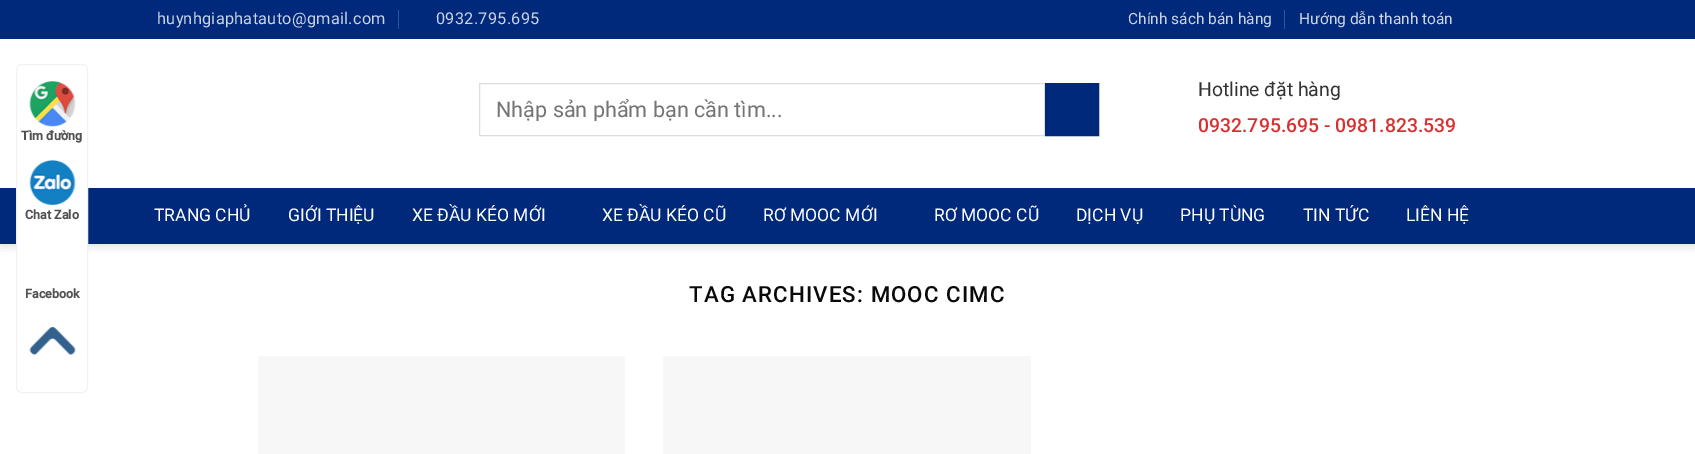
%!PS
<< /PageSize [1695 454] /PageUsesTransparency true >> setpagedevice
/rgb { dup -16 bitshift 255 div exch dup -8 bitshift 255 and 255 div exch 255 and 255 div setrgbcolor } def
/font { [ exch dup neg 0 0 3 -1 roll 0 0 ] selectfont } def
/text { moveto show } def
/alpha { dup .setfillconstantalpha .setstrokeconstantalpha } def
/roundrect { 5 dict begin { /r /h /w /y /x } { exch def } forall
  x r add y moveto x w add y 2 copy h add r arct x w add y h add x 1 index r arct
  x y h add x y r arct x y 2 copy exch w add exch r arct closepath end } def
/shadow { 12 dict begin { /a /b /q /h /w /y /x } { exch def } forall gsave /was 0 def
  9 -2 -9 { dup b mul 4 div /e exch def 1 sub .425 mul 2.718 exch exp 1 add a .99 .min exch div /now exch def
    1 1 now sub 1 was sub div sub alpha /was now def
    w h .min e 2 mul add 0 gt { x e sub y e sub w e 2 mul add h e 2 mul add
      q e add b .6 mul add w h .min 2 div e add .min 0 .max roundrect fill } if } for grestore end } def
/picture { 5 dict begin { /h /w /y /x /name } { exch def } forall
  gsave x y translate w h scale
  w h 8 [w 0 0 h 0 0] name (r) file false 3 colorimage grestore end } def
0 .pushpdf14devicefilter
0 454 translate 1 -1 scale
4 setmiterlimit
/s1 { /Roboto-Bold 12.5 font 16#515151 rgb } def
/s2 { /Roboto-Regular 15.5 font 16#CCD4E5 rgb } def
/s3 { /Roboto-Regular 21.6 font 16#757575 rgb } def
/s4 { /Roboto-Regular 19.4 font 16#333333 rgb } def
/s5 { /Roboto-Medium 19.4 font 16#D83131 rgb } def
/s6 { /Roboto-Regular 17.5 font 16#FFFFFF rgb } def
16#FFFFFF rgb
0 0 1695 454 rectfill
gsave
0 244 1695 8 rectclip
16#000000 rgb
1 1 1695 244 0 6 0.15 shadow
grestore
16#00297C rgb
0 188 1695 56 rectfill
16#FFFFFF rgb
16.5 64.5 71 328 5.5 roundrect gsave fill grestore
16#F2F2F2 rgb
stroke
(pic1.raw) 29 81 47 46 picture
s1
(Tìm đường) 21 140 text
(pic2.raw) 29 160 47 45 picture
(Chat Zalo) 25 219 text
(Facebook) 25 298 text
(pic3.raw) 29 327 47 28 picture
16#00297C rgb
0 0 1695 39 rectfill
/Roboto-Regular 16.25 font
16#CCD4E5 rgb
157 24 moveto 0.3 0 (huynhgiaphatauto@gmail.com) ashow
16#335496 rgb
398 10 1 19 rectfill
16#CCD4E5 rgb
436 24 moveto 0.3 0 (0932.795.695) ashow
s2
(Chính sách bán hàng) 1128 24 text
16#335496 rgb
1284 10 1 19 rectfill
s2
(Hướng dẫn thanh toán) 1299 24 text
16#DDDDDD rgb
479.5 83.5 565 52 rectstroke
gsave
496 96 527 25 rectclip
s3
(Nhập sản phẩm bạn cần tìm...) 496 117 text
grestore
16#00297C rgb
1045.5 83.5 moveto 1098.5 83.5 lineto 1098.5 135.5 lineto 1045.5 135.5 lineto closepath gsave fill grestore
16#002776 rgb
stroke
s4
(Hotline đặt hàng) 1198 96 text
s5
(0932.795.695 - 0981.823.539) 1198 132 text
s6
(TRANG CHỦ) 154 221 text
(GIỚI THIỆU) 288 221 text
(XE ĐẦU KÉO MỚI) 412 221 text
(XE ĐẦU KÉO CŨ) 602 221 text
(RƠ MOOC MỚI) 763 221 text
(RƠ MOOC CŨ) 934 221 text
(DỊCH VỤ) 1076 221 text
(PHỤ TÙNG) 1180 221 text
(TIN TỨC) 1303 221 text
(LIÊN HỆ) 1406 221 text
/Roboto-Medium 22.25 font
16#0A0A0A rgb
689 302 moveto 1.1 0 (TAG ARCHIVES: MOOC CIMC) ashow
16#F7F7F7 rgb
258 356 367 98 rectfill
663 356 368 98 rectfill
.poppdf14devicefilter showpage
